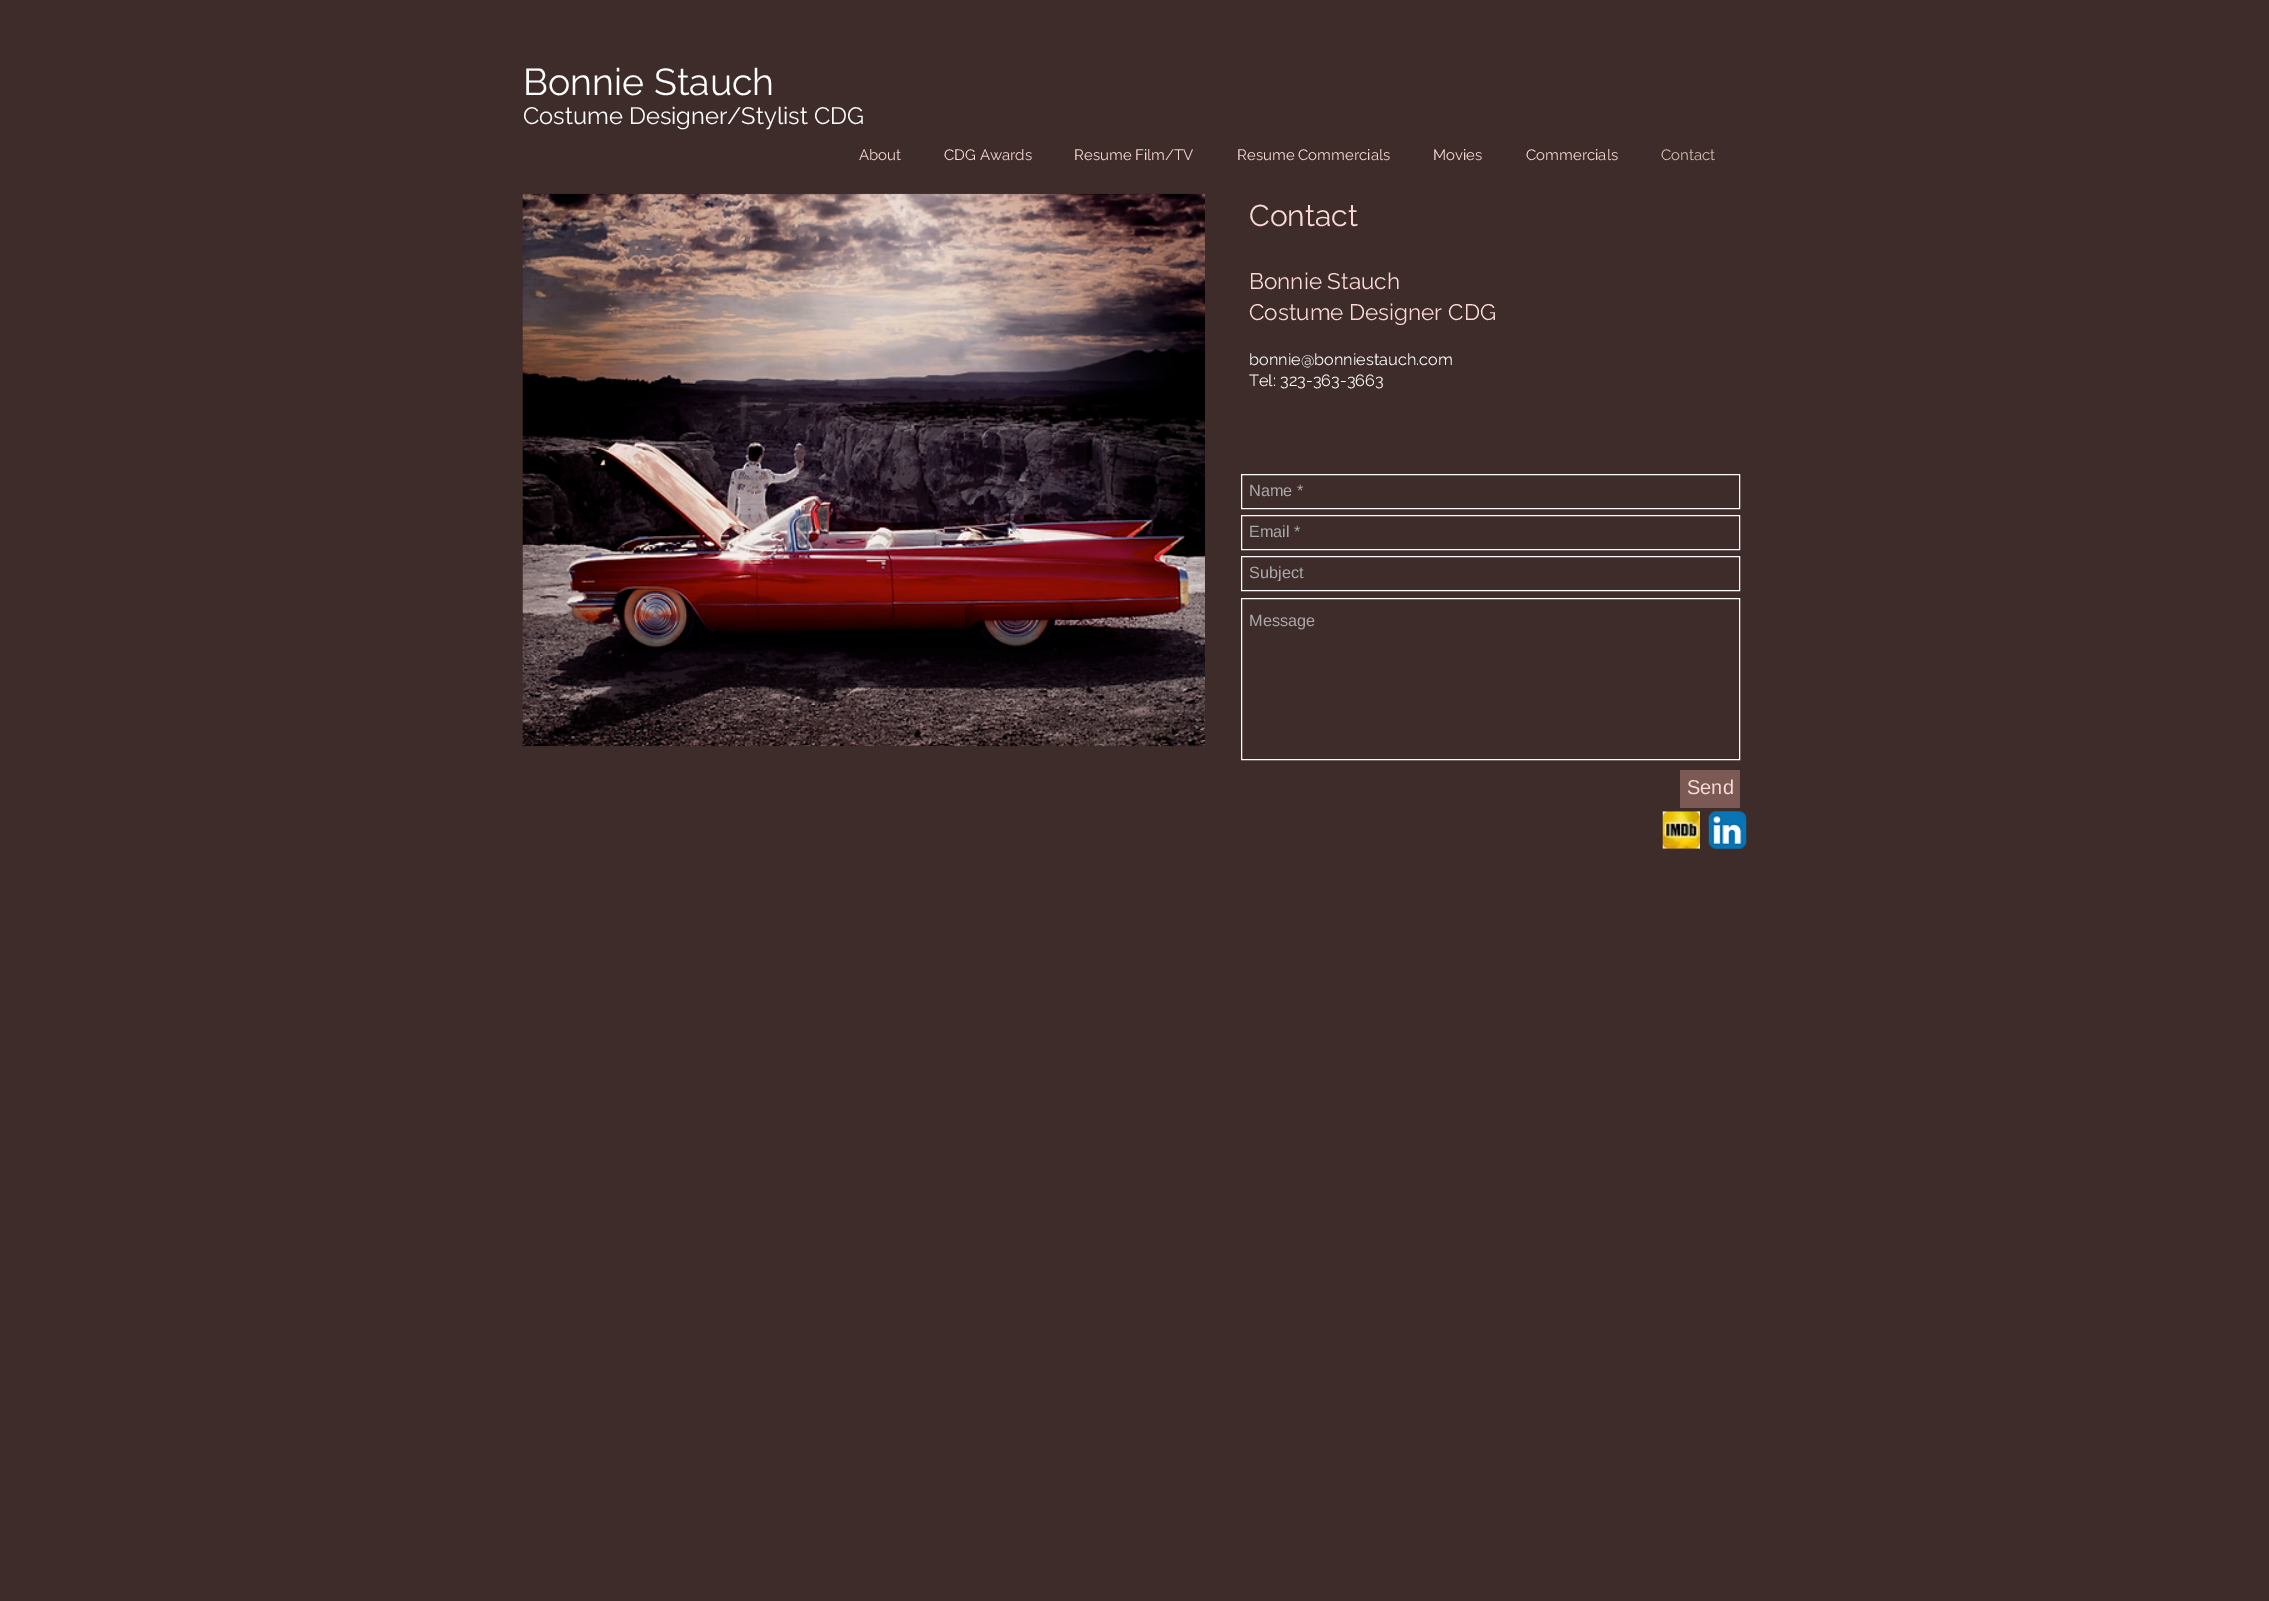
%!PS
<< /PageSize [2269 1601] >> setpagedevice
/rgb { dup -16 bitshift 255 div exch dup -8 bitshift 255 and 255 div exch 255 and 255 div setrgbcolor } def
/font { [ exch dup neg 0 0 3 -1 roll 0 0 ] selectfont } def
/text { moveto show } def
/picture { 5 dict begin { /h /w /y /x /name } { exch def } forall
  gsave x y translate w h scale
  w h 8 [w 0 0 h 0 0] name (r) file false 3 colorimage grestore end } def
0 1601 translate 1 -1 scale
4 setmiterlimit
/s1 { /Raleway-Regular 37.5 font 16#FEFDFD rgb } def
/s2 { /Raleway-Regular 23.75 font 16#FEFDFD rgb } def
/s3 { /Raleway-Regular 15 font 16#FBD8D4 rgb } def
/s4 { /Raleway-Regular 15 font 16#D7C0AF rgb } def
/s5 { /Raleway-Regular 30 font 16#FBD8D4 rgb } def
/s6 { /Raleway-Regular 22.5 font 16#FBD8D4 rgb } def
/s7 { /Raleway-Regular 16.25 font 16#FEFDFD rgb } def
/s8 { /LiberationSans-Regular 16.25 font 16#A9A9A9 rgb } def
/s9 { /LiberationSans-Regular 20 font 16#FBD8D4 rgb } def
16#3D2C2A rgb
0 0 2269 1601 rectfill
s1
(Bonnie Stauch) 523 95 text
s2
(Costume Designer/Stylist CDG) 523 124 text
s3
(About) 859 160 text
(CDG Awards) 944 160 text
(Resume Film/TV) 1074 160 text
(Resume Commercials) 1237 160 text
(Movies) 1433 160 text
(Commercials) 1526 160 text
s4
(Contact) 1661 160 text
(pic1.raw) 522 193 683 554 picture
s5
(Contact) 1249 226 text
s6
(Bonnie Stauch) 1249 289 text
(Costume Designer CDG) 1249 320 text
s7
(bonnie@bonniestauch.com) 1249 365 text
(Tel: 323-363-3663) 1249 386 text
1241.5 474.5 498 34 rectstroke
s8
(Name *) 1249 496 text
16#FEFDFD rgb
1241.5 515.5 498 34 rectstroke
s8
(Email *) 1249 537 text
16#FEFDFD rgb
1241.5 556.5 498 34 rectstroke
gsave
1249 563 486 18 rectclip
s8
(Subject) 1249 578 text
grestore
1241.5 598.5 498 161 rectstroke
s8
(Message) 1249 626 text
16#7B5955 rgb
1680 770 60 38 rectfill
s9
(Send) 1687 794 text
(pic2.raw) 1662 811 38 38 picture
(pic3.raw) 1708 811 39 38 picture
showpage
